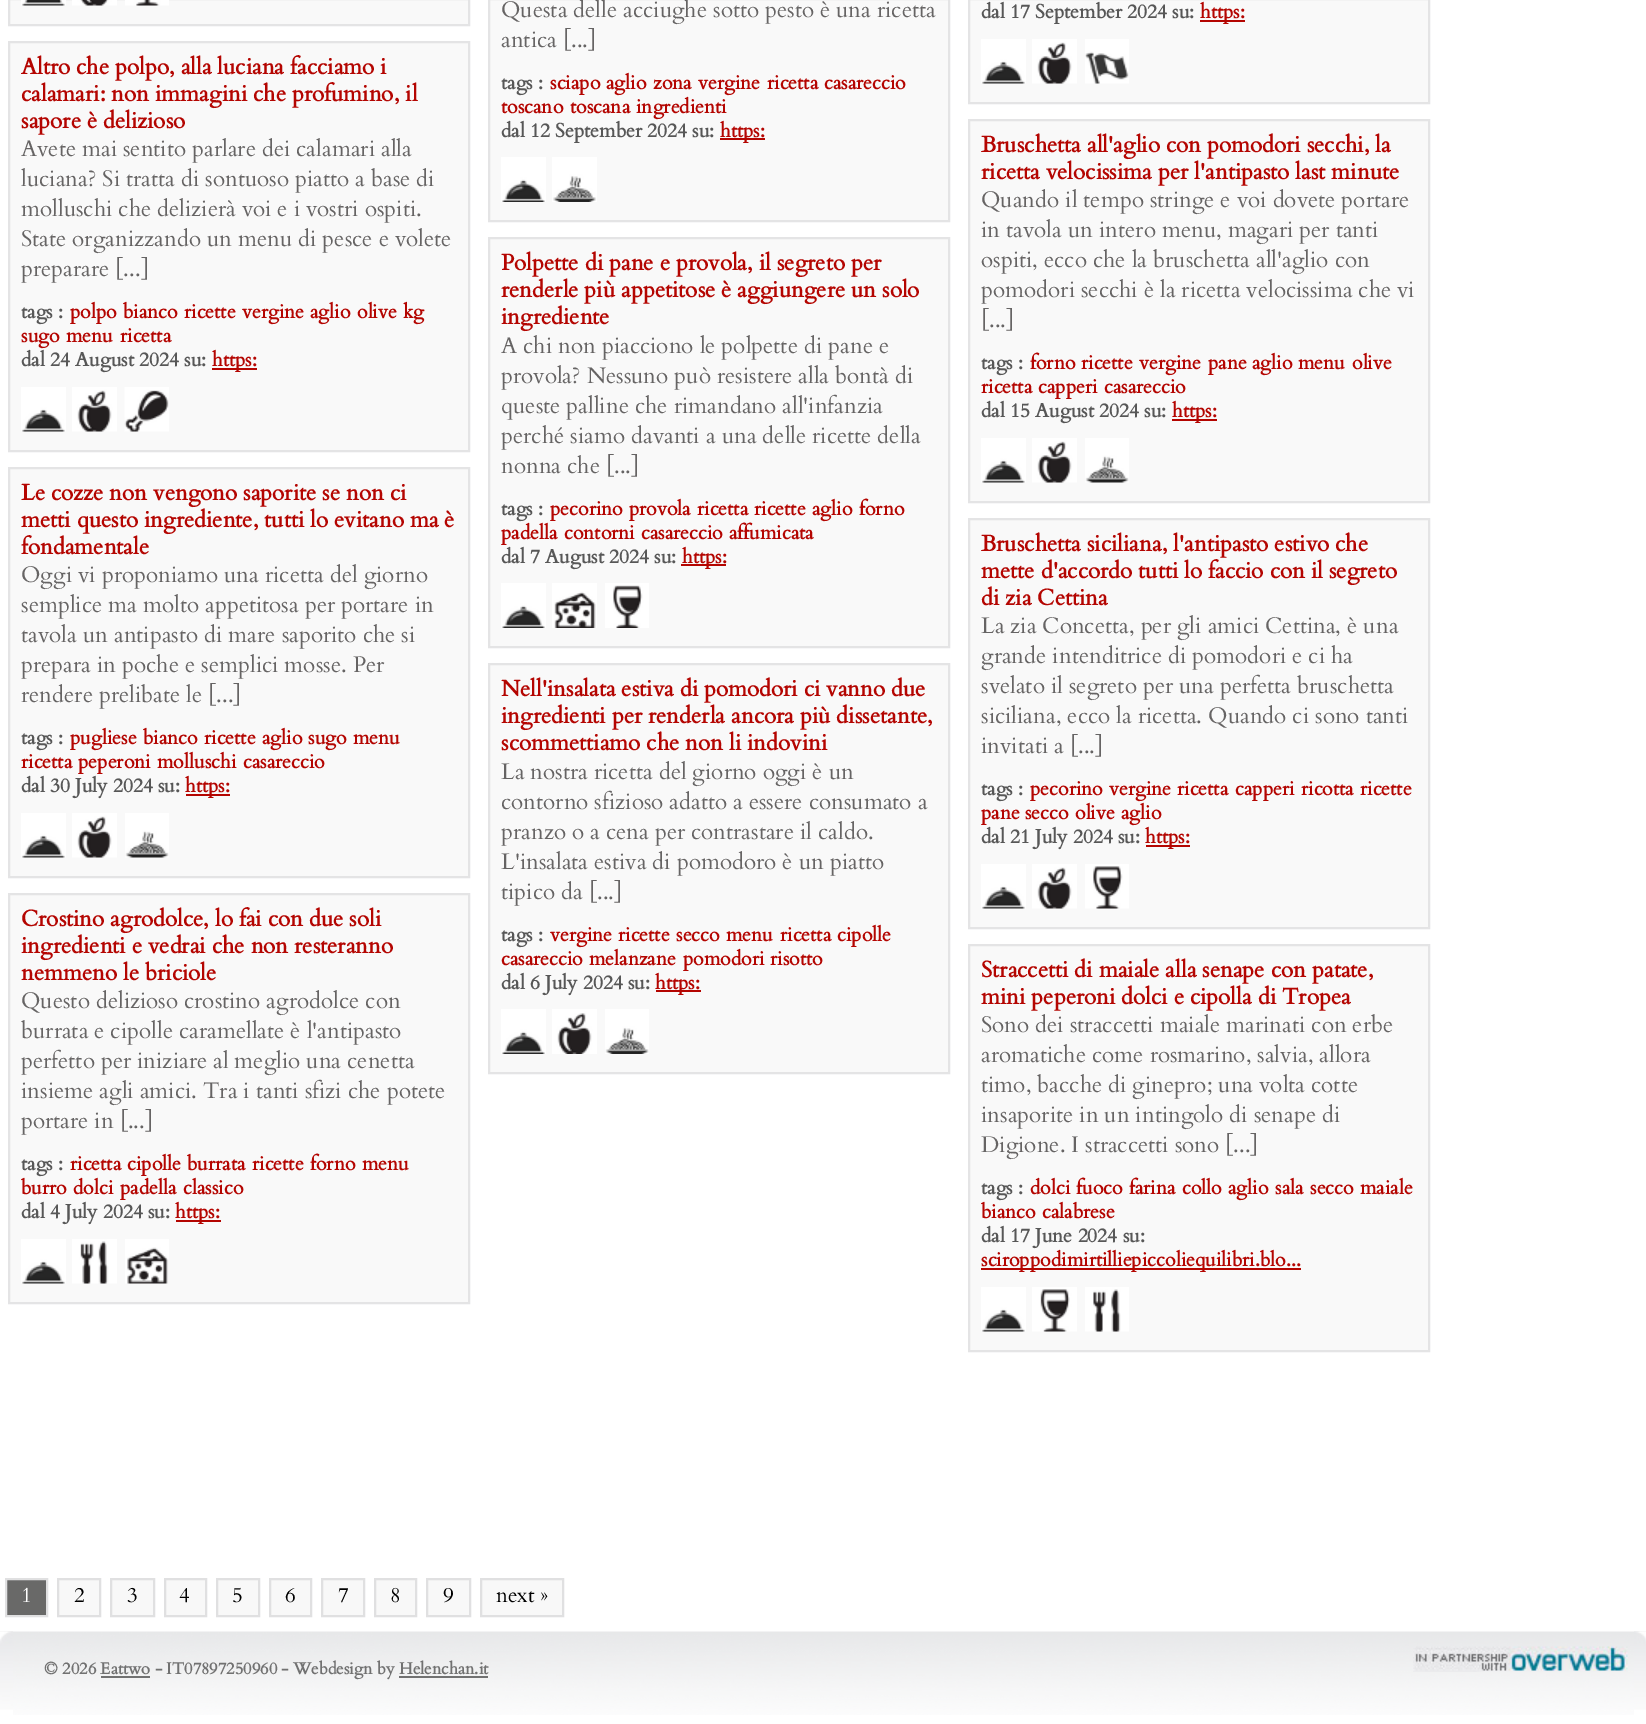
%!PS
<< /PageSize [1646 1724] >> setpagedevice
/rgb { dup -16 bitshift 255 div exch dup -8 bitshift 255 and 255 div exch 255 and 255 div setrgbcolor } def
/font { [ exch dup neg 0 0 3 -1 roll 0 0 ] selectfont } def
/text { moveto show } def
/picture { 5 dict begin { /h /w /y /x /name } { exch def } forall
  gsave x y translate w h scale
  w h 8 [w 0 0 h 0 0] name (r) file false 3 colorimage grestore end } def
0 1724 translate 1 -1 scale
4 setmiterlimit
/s1 { /Cardo-Regular 22.5 font 16#666464 rgb } def
/s2 { /Cardo-Bold 19.5 font 16#575757 rgb } def
/s3 { /Cardo-Bold 19.5 font 16#B40501 rgb } def
/s4 { /Cardo-Bold 22.5 font 16#B40501 rgb } def
/s5 { /Cardo-Regular 21 font 16#FFFFFF rgb } def
/s6 { /Cardo-Regular 21 font 16#000000 rgb } def
/s7 { /Cardo-Bold 16.5 font 16#717171 rgb } def
16#FFFFFF rgb
0 0 1646 1724 rectfill
16#F9F9F9 rgb
9 -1 moveto 469 -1 lineto 469 25 lineto 9 25 lineto closepath gsave fill grestore
16#E4E4E5 rgb
2 setlinewidth
stroke
(pic1.raw) 21 0 45 6 picture
(pic2.raw) 72 0 45 6 picture
(pic3.raw) 125 0 44 6 picture
16#F9F9F9 rgb
489 -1 moveto 949 -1 lineto 949 221 lineto 489 221 lineto closepath gsave fill grestore
16#E4E4E5 rgb
stroke
s1
(Questa delle acciughe sotto pesto è una ricetta) 501 17 text
(antica [...]) 501 47 text
s2
(tags :) 501 89 text
s3
(sciapo) 550 89 text
(aglio) 606 89 text
(zona) 653 89 text
(vergine) 698 89 text
(ricetta) 767 89 text
(casareccio) 824 89 text
(toscano) 501 113 text
(toscana) 570 113 text
(ingredienti) 636 113 text
s2
(dal 12 September 2024 su:) 501 137 text
16#B40501 rgb
720 138 45 2 rectfill
(https:) 720 137 text
(pic4.raw) 501 157 45 45 picture
(pic5.raw) 552 157 45 45 picture
16#F9F9F9 rgb
969 -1 moveto 1429 -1 lineto 1429 103 lineto 969 103 lineto closepath gsave fill grestore
16#E4E4E5 rgb
stroke
s2
(dal 17 September 2024 su:) 981 18 text
16#B40501 rgb
1200 20 45 2 rectfill
(https:) 1200 18 text
(pic6.raw) 981 39 45 45 picture
(pic7.raw) 1032 39 45 45 picture
(pic8.raw) 1085 39 44 45 picture
16#F9F9F9 rgb
9 42 moveto 469 42 lineto 469 451 lineto 9 451 lineto closepath gsave fill grestore
16#E4E4E5 rgb
stroke
s4
(Altro che polpo, alla luciana facciamo i) 21 74 text
(calamari: non immagini che profumino, il) 21 101 text
(sapore è delizioso) 21 128 text
s1
(Avete mai sentito parlare dei calamari alla) 21 156 text
(luciana? Si tratta di sontuoso piatto a base di) 21 186 text
(molluschi che delizierà voi e i vostri ospiti.) 21 216 text
(State organizzando un menu di pesce e volete) 21 246 text
(preparare [...]) 21 276 text
s2
(tags :) 21 318 text
s3
(polpo) 70 318 text
(bianco) 123 318 text
(ricette) 184 318 text
(vergine) 242 318 text
(aglio) 310 318 text
(olive) 357 318 text
(kg) 403 318 text
(sugo) 21 342 text
(menu) 66 342 text
(ricetta) 120 342 text
s2
(dal 24 August 2024 su:) 21 366 text
16#B40501 rgb
212 368 45 2 rectfill
(https:) 212 366 text
(pic6.raw) 21 387 45 45 picture
(pic9.raw) 72 387 45 45 picture
(pic10.raw) 124 387 45 45 picture
16#F9F9F9 rgb
489 238 moveto 949 238 lineto 949 647 lineto 489 647 lineto closepath gsave fill grestore
16#E4E4E5 rgb
stroke
s4
(Polpette di pane e provola, il segreto per) 501 270 text
(renderle più appetitose è aggiungere un solo) 501 297 text
(ingrediente) 501 324 text
s1
(A chi non piacciono le polpette di pane e) 501 353 text
(provola? Nessuno può resistere alla bontà di) 501 383 text
(queste palline che rimandano all’infanzia) 501 413 text
(perché siamo davanti a una delle ricette della) 501 443 text
(nonna che [...]) 501 473 text
s2
(tags :) 501 515 text
s3
(pecorino) 550 515 text
(provola) 629 515 text
(ricetta) 697 515 text
(ricette) 754 515 text
(aglio) 812 515 text
(forno) 859 515 text
(padella) 501 539 text
(contorni) 564 539 text
(casareccio) 641 539 text
(affumicata) 729 539 text
s2
(dal 7 August 2024 su:) 501 563 text
16#B40501 rgb
681 564 45 2 rectfill
(https:) 682 563 text
(pic4.raw) 501 583 45 45 picture
(pic11.raw) 552 583 45 45 picture
(pic12.raw) 605 583 44 45 picture
16#F9F9F9 rgb
969 120 moveto 1429 120 lineto 1429 502 lineto 969 502 lineto closepath gsave fill grestore
16#E4E4E5 rgb
stroke
s4
(Bruschetta all’aglio con pomodori secchi, la) 981 152 text
(ricetta velocissima per l’antipasto last minute) 981 179 text
s1
(Quando il tempo stringe e voi dovete portare) 981 207 text
(in tavola un intero menu, magari per tanti) 981 237 text
(ospiti, ecco che la bruschetta all’aglio con) 981 267 text
(pomodori secchi è la ricetta velocissima che vi) 981 297 text
([...]) 981 327 text
s2
(tags :) 981 369 text
s3
(forno) 1030 369 text
(ricette) 1081 369 text
(vergine) 1139 369 text
(pane aglio) 1208 369 text
(menu) 1298 369 text
(olive) 1352 369 text
(ricetta) 981 393 text
(capperi) 1038 393 text
(casareccio) 1104 393 text
s2
(dal 15 August 2024 su:) 981 417 text
16#B40501 rgb
1172 419 45 2 rectfill
(https:) 1172 417 text
(pic6.raw) 981 438 45 45 picture
(pic7.raw) 1032 438 45 45 picture
(pic13.raw) 1085 438 44 45 picture
16#F9F9F9 rgb
9 468 moveto 469 468 lineto 469 877 lineto 9 877 lineto closepath gsave fill grestore
16#E4E4E5 rgb
stroke
s4
(Le cozze non vengono saporite se non ci) 21 500 text
(metti questo ingrediente, tutti lo evitano ma è) 21 527 text
(fondamentale) 21 554 text
s1
(Oggi vi proponiamo una ricetta del giorno) 21 582 text
(semplice ma molto appetitosa per portare in) 21 612 text
(tavola un antipasto di mare saporito che si) 21 642 text
(prepara in poche e semplici mosse. Per) 21 672 text
(rendere prelibate le [...]) 21 702 text
s2
(tags :) 21 744 text
s3
(pugliese) 70 744 text
(bianco) 143 744 text
(ricette) 204 744 text
(aglio) 262 744 text
(sugo) 308 744 text
(menu) 353 744 text
(ricetta) 21 768 text
(peperoni) 78 768 text
(molluschi) 157 768 text
(casareccio) 243 768 text
s2
(dal 30 July 2024 su:) 21 792 text
16#B40501 rgb
186 794 44 2 rectfill
(https:) 185 792 text
(pic6.raw) 21 813 45 45 picture
(pic9.raw) 72 813 45 45 picture
(pic13.raw) 125 813 44 45 picture
16#F9F9F9 rgb
489 664 moveto 949 664 lineto 949 1073 lineto 489 1073 lineto closepath gsave fill grestore
16#E4E4E5 rgb
stroke
s4
(Nell’insalata estiva di pomodori ci vanno due) 501 696 text
(ingredienti per renderla ancora più dissetante,) 501 723 text
(scommettiamo che non li indovini) 501 750 text
s1
(La nostra ricetta del giorno oggi è un) 501 779 text
(contorno sfizioso adatto a essere consumato a) 501 809 text
(pranzo o a cena per contrastare il caldo.) 501 839 text
(L’insalata estiva di pomodoro è un piatto) 501 869 text
(tipico da [...]) 501 899 text
s2
(tags :) 501 941 text
s3
(vergine) 550 941 text
(ricette) 618 941 text
(secco) 676 941 text
(menu) 726 941 text
(ricetta) 780 941 text
(cipolle) 837 941 text
(casareccio) 501 965 text
(melanzane) 589 965 text
(pomodori) 683 965 text
(risotto) 770 965 text
s2
(dal 6 July 2024 su:) 501 989 text
16#B40501 rgb
656 990 45 2 rectfill
(https:) 655 989 text
(pic4.raw) 501 1009 45 45 picture
(pic14.raw) 552 1009 45 45 picture
(pic15.raw) 605 1009 44 45 picture
16#F9F9F9 rgb
969 519 moveto 1429 519 lineto 1429 928 lineto 969 928 lineto closepath gsave fill grestore
16#E4E4E5 rgb
stroke
s4
(Bruschetta siciliana, l’antipasto estivo che) 981 551 text
(mette d’accordo tutti lo faccio con il segreto) 981 578 text
(di zia Cettina) 981 605 text
s1
(La zia Concetta, per gli amici Cettina, è una) 981 633 text
(grande intenditrice di pomodori e ci ha) 981 663 text
(svelato il segreto per una perfetta bruschetta) 981 693 text
(siciliana, ecco la ricetta. Quando ci sono tanti) 981 723 text
(invitati a [...]) 981 753 text
s2
(tags :) 981 795 text
s3
(pecorino) 1030 795 text
(vergine) 1109 795 text
(ricetta) 1177 795 text
(capperi) 1235 795 text
(ricotta) 1301 795 text
(ricette) 1360 795 text
(pane secco) 981 819 text
(olive) 1075 819 text
(aglio) 1121 819 text
s2
(dal 21 July 2024 su:) 981 843 text
16#B40501 rgb
1146 845 44 2 rectfill
(https:) 1145 843 text
(pic6.raw) 981 864 45 45 picture
(pic7.raw) 1032 864 45 45 picture
(pic16.raw) 1085 864 44 45 picture
16#F9F9F9 rgb
9 894 moveto 469 894 lineto 469 1303 lineto 9 1303 lineto closepath gsave fill grestore
16#E4E4E5 rgb
stroke
s4
(Crostino agrodolce, lo fai con due soli) 21 926 text
(ingredienti e vedrai che non resteranno) 21 953 text
(nemmeno le briciole) 21 980 text
s1
(Questo delizioso crostino agrodolce con) 21 1008 text
(burrata e cipolle caramellate è l’antipasto) 21 1038 text
(perfetto per iniziare al meglio una cenetta) 21 1068 text
(insieme agli amici. Tra i tanti sfizi che potete) 21 1098 text
(portare in [...]) 21 1128 text
s2
(tags :) 21 1170 text
s3
(ricetta) 70 1170 text
(cipolle) 127 1170 text
(burrata) 187 1170 text
(ricette) 252 1170 text
(forno) 310 1170 text
(menu) 362 1170 text
(burro) 21 1194 text
(dolci) 73 1194 text
(padella) 120 1194 text
(classico) 183 1194 text
s2
(dal 4 July 2024 su:) 21 1218 text
16#B40501 rgb
176 1220 45 2 rectfill
(https:) 175 1218 text
(pic6.raw) 21 1239 45 45 picture
(pic17.raw) 72 1239 45 45 picture
(pic18.raw) 125 1239 44 45 picture
16#F9F9F9 rgb
969 945 moveto 1429 945 lineto 1429 1351 lineto 969 1351 lineto closepath gsave fill grestore
16#E4E4E5 rgb
stroke
s4
(Straccetti di maiale alla senape con patate,) 981 977 text
(mini peperoni dolci e cipolla di Tropea) 981 1004 text
s1
(Sono dei straccetti maiale marinati con erbe) 981 1032 text
(aromatiche come rosmarino, salvia, allora) 981 1062 text
(timo, bacche di ginepro; una volta cotte) 981 1092 text
(insaporite in un intingolo di senape di) 981 1122 text
(Digione. I straccetti sono [...]) 981 1152 text
s2
(tags :) 981 1194 text
s3
(dolci) 1030 1194 text
(fuoco) 1076 1194 text
(farina) 1129 1194 text
(collo) 1182 1194 text
(aglio) 1228 1194 text
(sala) 1275 1194 text
(secco) 1310 1194 text
(maiale) 1360 1194 text
(bianco) 981 1218 text
(calabrese) 1042 1218 text
s2
(dal 17 June 2024 su:) 981 1242 text
16#B40501 rgb
981 1268 320 2 rectfill
(sciroppodimirtilliepiccoliequilibri.blo...) 981 1266 text
(pic6.raw) 981 1287 45 45 picture
(pic19.raw) 1032 1287 45 45 picture
(pic20.raw) 1085 1287 44 45 picture
16#696968 rgb
6 1579 moveto 47 1579 lineto 47 1616 lineto 6 1616 lineto closepath gsave fill grestore
16#E0E0E1 rgb
stroke
s5
(1) 21 1602 text
16#F8F8F8 rgb
58 1579 moveto 100 1579 lineto 100 1616 lineto 58 1616 lineto closepath gsave fill grestore
16#E0E0E1 rgb
stroke
s6
(2) 74 1602 text
16#F8F8F8 rgb
111 1579 moveto 154 1579 lineto 154 1616 lineto 111 1616 lineto closepath gsave fill grestore
16#E0E0E1 rgb
stroke
s6
(3) 127 1602 text
16#F8F8F8 rgb
165 1579 moveto 206 1579 lineto 206 1616 lineto 165 1616 lineto closepath gsave fill grestore
16#E0E0E1 rgb
stroke
s6
(4) 179 1602 text
16#F8F8F8 rgb
217 1579 moveto 259 1579 lineto 259 1616 lineto 217 1616 lineto closepath gsave fill grestore
16#E0E0E1 rgb
stroke
s6
(5) 232 1602 text
16#F8F8F8 rgb
270 1579 moveto 311 1579 lineto 311 1616 lineto 270 1616 lineto closepath gsave fill grestore
16#E0E0E1 rgb
stroke
s6
(6) 285 1602 text
16#F8F8F8 rgb
322 1579 moveto 364 1579 lineto 364 1616 lineto 322 1616 lineto closepath gsave fill grestore
16#E0E0E1 rgb
stroke
s6
(7) 338 1602 text
16#F8F8F8 rgb
375 1579 moveto 416 1579 lineto 416 1616 lineto 375 1616 lineto closepath gsave fill grestore
16#E0E0E1 rgb
stroke
s6
(8) 390 1602 text
16#F8F8F8 rgb
427 1579 moveto 470 1579 lineto 470 1616 lineto 427 1616 lineto closepath gsave fill grestore
16#E0E0E1 rgb
stroke
s6
(9) 443 1602 text
16#F8F8F8 rgb
481 1579 moveto 563 1579 lineto 563 1616 lineto 481 1616 lineto closepath gsave fill grestore
16#E0E0E1 rgb
stroke
s6
(next ») 496 1602 text
(pic21.raw) 0 1631 1646 84 picture
(pic22.raw) 0 1631 13 84 picture
s7
(© 2026 Eattwo - IT07897250960 - Webdesign by Helenchan.it) 44 1674 text
101 1676 49 2 rectfill
399 1676 89 2 rectfill
(pic23.raw) 1413 1646 215 26 picture
(pic24.raw) 1634 1631 12 84 picture
showpage
